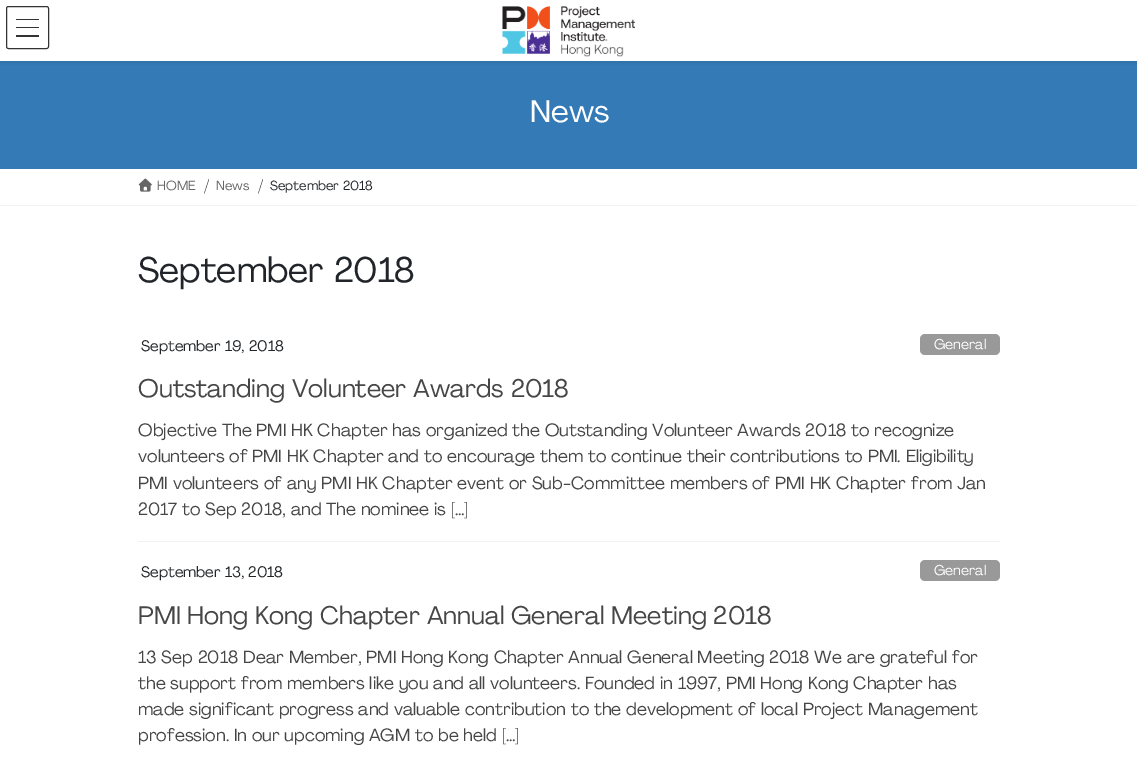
%!PS
<< /PageSize [1137 759] /PageUsesTransparency true >> setpagedevice
/rgb { dup -16 bitshift 255 div exch dup -8 bitshift 255 and 255 div exch 255 and 255 div setrgbcolor } def
/font { [ exch dup neg 0 0 3 -1 roll 0 0 ] selectfont } def
/text { moveto show } def
/alpha { dup .setfillconstantalpha .setstrokeconstantalpha } def
/roundrect { 5 dict begin { /r /h /w /y /x } { exch def } forall
  x r add y moveto x w add y 2 copy h add r arct x w add y h add x 1 index r arct
  x y h add x y r arct x y 2 copy exch w add exch r arct closepath end } def
/shadow { 12 dict begin { /a /b /q /h /w /y /x } { exch def } forall gsave /was 0 def
  9 -2 -9 { dup b mul 4 div /e exch def 1 sub .425 mul 2.718 exch exp 1 add a .99 .min exch div /now exch def
    1 1 now sub 1 was sub div sub alpha /was now def
    w h .min e 2 mul add 0 gt { x e sub y e sub w e 2 mul add h e 2 mul add
      q e add b .6 mul add w h .min 2 div e add .min 0 .max roundrect fill } if } for grestore end } def
/picture { 5 dict begin { /h /w /y /x /name } { exch def } forall
  gsave x y translate w h scale
  w h 8 [w 0 0 h 0 0] name (r) file false 3 colorimage grestore end } def
0 .pushpdf14devicefilter
0 759 translate 1 -1 scale
4 setmiterlimit
/s1 { /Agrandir-Regular 31 font 16#FFFFFF rgb } def
/s2 { /Agrandir-Regular 13 font 16#666666 rgb } def
/s3 { /Agrandir-Regular 15 font 16#212529 rgb } def
/s4 { /Agrandir-Regular 13 font 16#212529 rgb } def
/s5 { /Agrandir-Regular 35 font 16#212529 rgb } def
/s6 { /Agrandir-Regular 14 font 16#FFFFFF rgb } def
/s7 { /Agrandir-Regular 25 font 16#464646 rgb } def
/s8 { /Agrandir-Regular 17.5 font 16#464646 rgb } def
16#FFFFFF rgb
0 0 1137 759 rectfill
16#337AB7 rgb
0 61 1137 108 rectfill
gsave
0 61 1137 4 rectclip
16#000000 rgb
0 1 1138 62 0 2 0.1 shadow
grestore
(pic1.raw) 502 6 133 51 picture
16#333333 rgb
16 19 23 1 rectfill
16 27 23 1 rectfill
16 35 23 2 rectfill
6.5 6.5 42 42 2 roundrect stroke
s1
(News) 530 122 text
16#F2F2F2 rgb
0 205 1137 1 rectfill
(pic2.raw) 138 178 14 14 picture
s2
(HOME) 157 190 text
s3
(/) 204 190 text
s2
(News) 216 190 text
s3
(/) 258 190 text
s4
(September 2018) 270 190 text
s5
(September 2018) 138 282 text
16#F2F2F2 rgb
138 541 862 1 rectfill
s3
(September 19, 2018) 141 351 text
16#999999 rgb
920 334 80 21 5 roundrect fill
s6
(General) 934 349 text
s7
(Outstanding Volunteer Awards 2018) 138 397 text
s8
(Objective The PMI HK Chapter has organized the Outstanding Volunteer Awards 2018 to recognize) 138 436 text
(volunteers of PMI HK Chapter and to encourage them to continue their contributions to PMI. Eligibility) 138 462 text
(PMI volunteers of any PMI HK Chapter event or Sub-Committee members of PMI HK Chapter from Jan) 138 489 text
(2017 to Sep 2018, and The nominee is […]) 138 515 text
s3
(September 13, 2018) 141 577 text
16#999999 rgb
920 560 80 21 5 roundrect fill
s6
(General) 934 575 text
s7
(PMI Hong Kong Chapter Annual General Meeting 2018) 138 624 text
s8
(13 Sep 2018 Dear Member, PMI Hong Kong Chapter Annual General Meeting 2018 We are grateful for) 138 663 text
(the support from members like you and all volunteers. Founded in 1997, PMI Hong Kong Chapter has) 138 689 text
(made significant progress and valuable contribution to the development of local Project Management) 138 715 text
(profession. In our upcoming AGM to be held […]) 138 741 text
.poppdf14devicefilter showpage
